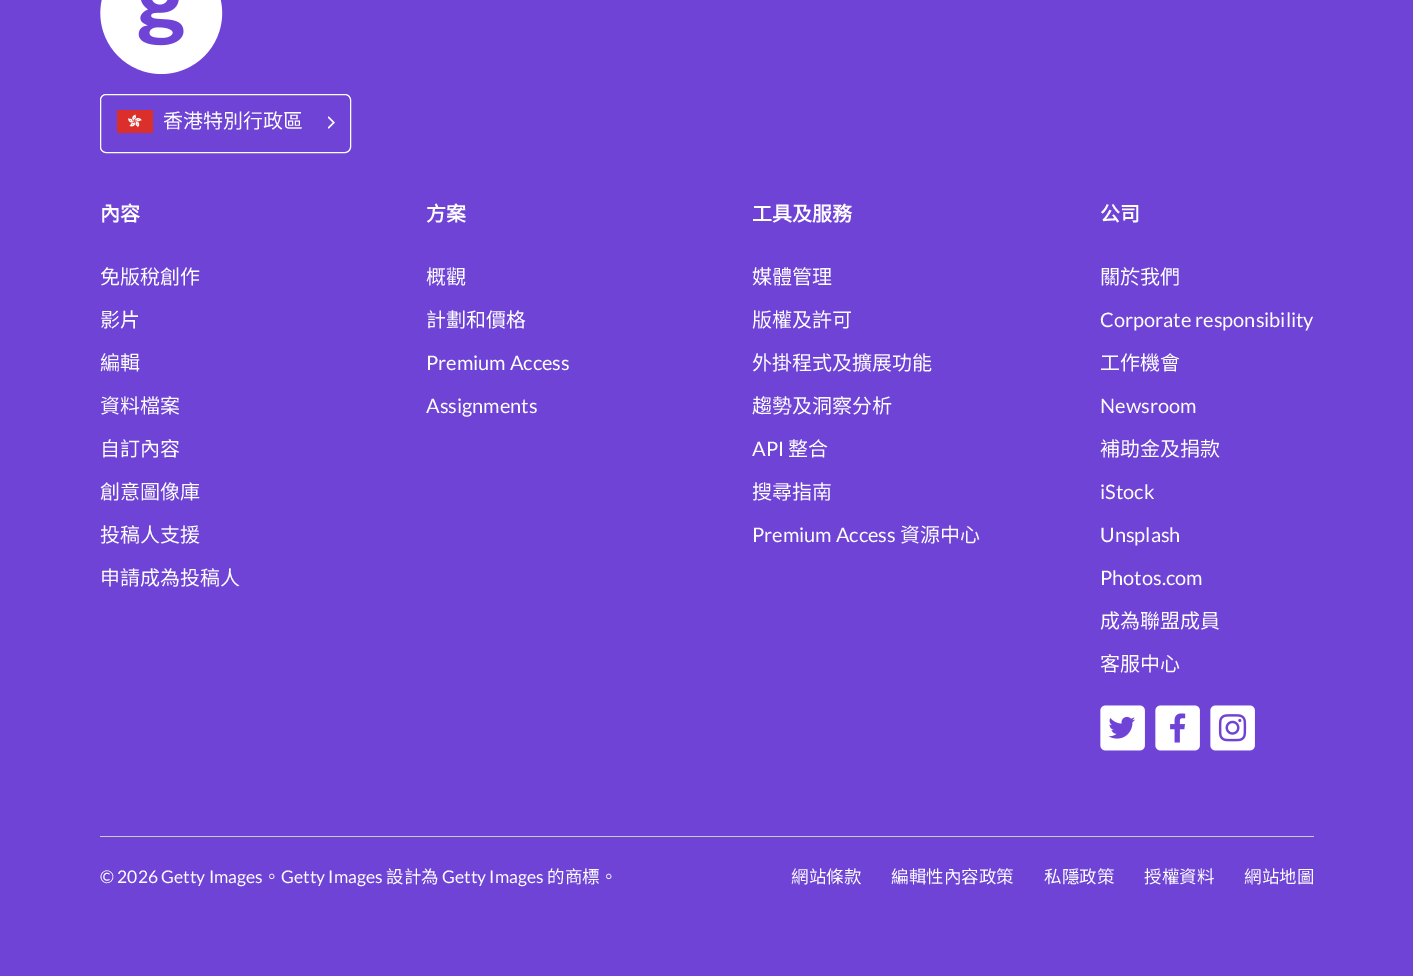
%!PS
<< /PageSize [1413 976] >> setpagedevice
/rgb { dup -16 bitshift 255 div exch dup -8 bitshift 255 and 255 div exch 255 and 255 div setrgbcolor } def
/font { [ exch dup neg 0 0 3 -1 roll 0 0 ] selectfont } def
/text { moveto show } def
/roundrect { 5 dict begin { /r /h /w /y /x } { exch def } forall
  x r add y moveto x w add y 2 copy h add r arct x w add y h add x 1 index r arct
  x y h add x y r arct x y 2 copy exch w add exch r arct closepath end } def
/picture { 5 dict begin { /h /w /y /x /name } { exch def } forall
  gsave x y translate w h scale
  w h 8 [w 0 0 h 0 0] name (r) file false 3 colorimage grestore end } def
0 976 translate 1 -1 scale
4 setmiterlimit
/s1 { /NotoSansCJKHK-Regular 20 font 16#FFFFFF rgb } def
/s2 { /NotoSansCJKHK-Bold 20 font 16#FFFFFF rgb } def
/s3 { /Lato-Regular 20 font 16#FFFFFF rgb } def
/s4 { /Lato-Regular 17.5 font 16#FFFFFF rgb } def
/s5 { /NotoSansCJKHK-Regular 17.5 font 16#FFFFFF rgb } def
16#6F43D6 rgb
0 0 1413 976 rectfill
(pic1.raw) 100 0 123 74 picture
16#FFFFFF rgb
100.5 94.5 250 58 5.5 roundrect stroke
(pic2.raw) 117 110 36 23 picture
s1
(香港特別行政區) 163 128 text
(pic3.raw) 328 116 7 13 picture
s2
(內容) 100 221 text
s1
(免版稅創作) 100 284 text
(影片) 100 327 text
(編輯) 100 370 text
(資料檔案) 100 413 text
(自訂內容) 100 456 text
(創意圖像庫) 100 499 text
(投稿人支援) 100 542 text
(申請成為投稿人) 100 585 text
s2
(方案) 426 221 text
s1
(概觀) 426 284 text
(計劃和價格) 426 327 text
s3
(Premium Access) 426 370 text
(Assignments) 426 413 text
s2
(工具及服務) 752 221 text
s1
(媒體管理) 752 284 text
(版權及許可) 752 327 text
(外掛程式及擴展功能) 752 370 text
(趨勢及洞察分析) 752 413 text
s3
(API) 752 456 text
s1
(整合) 788 456 text
(搜尋指南) 752 499 text
s3
(Premium Access) 752 542 text
s1
(資源中心) 900 542 text
s2
(公司) 1100 221 text
s1
(關於我們) 1100 284 text
s3
(Corporate responsibility) 1100 327 text
s1
(工作機會) 1100 370 text
s3
(Newsroom) 1100 413 text
s1
(補助金及捐款) 1100 456 text
s3
(iStock) 1100 499 text
(Unsplash) 1100 542 text
(Photos.com) 1100 585 text
s1
(成為聯盟成員) 1100 628 text
(客服中心) 1100 671 text
(pic4.raw) 1100 705 45 46 picture
(pic5.raw) 1155 705 45 46 picture
(pic6.raw) 1210 705 45 46 picture
16#CCCCCC rgb
100 836 1214 1 rectfill
s4
(© 2026 Getty Images) 100 883 text
s5
(。) 263 883 text
s4
(Getty Images) 281 883 text
s5
(設計為) 386 883 text
s4
(Getty Images) 442 883 text
s5
(的商標。) 547 883 text
(網站條款) 791 883 text
(編輯性內容政策) 891 883 text
(私隱政策) 1044 883 text
(授權資料) 1144 883 text
(網站地圖) 1244 883 text
showpage
